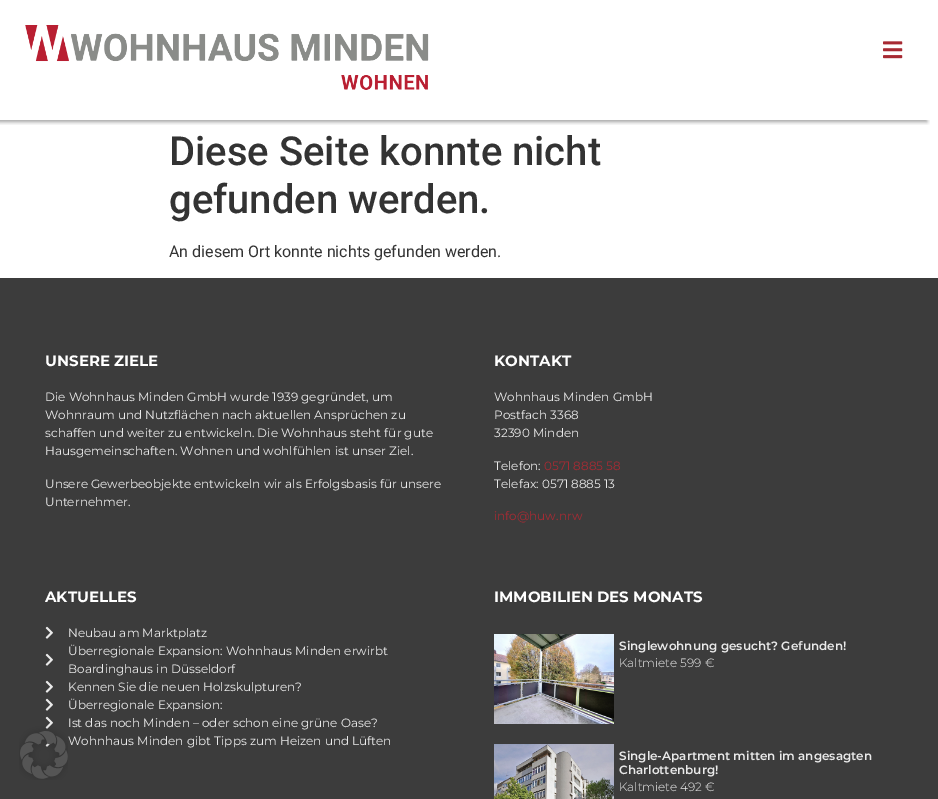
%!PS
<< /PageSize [938 799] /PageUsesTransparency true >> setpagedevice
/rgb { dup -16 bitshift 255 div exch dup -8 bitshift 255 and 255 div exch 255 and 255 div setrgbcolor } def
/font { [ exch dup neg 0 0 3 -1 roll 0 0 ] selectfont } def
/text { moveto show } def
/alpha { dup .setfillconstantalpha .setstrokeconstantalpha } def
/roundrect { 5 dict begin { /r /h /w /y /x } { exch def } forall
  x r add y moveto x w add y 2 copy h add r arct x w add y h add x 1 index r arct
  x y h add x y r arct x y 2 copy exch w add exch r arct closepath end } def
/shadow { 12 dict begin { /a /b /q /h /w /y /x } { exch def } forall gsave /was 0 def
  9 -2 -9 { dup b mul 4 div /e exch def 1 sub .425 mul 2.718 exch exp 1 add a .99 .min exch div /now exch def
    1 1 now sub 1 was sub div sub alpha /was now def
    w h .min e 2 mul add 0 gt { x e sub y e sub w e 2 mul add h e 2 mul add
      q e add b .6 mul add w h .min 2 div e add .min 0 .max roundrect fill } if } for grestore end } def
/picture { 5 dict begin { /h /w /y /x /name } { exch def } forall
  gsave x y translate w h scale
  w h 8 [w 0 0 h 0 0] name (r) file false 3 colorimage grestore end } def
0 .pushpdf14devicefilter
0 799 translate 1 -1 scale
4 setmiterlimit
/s1 { /Roboto-Medium 40 font 16#333333 rgb } def
/s2 { /Roboto-Regular 16 font 16#333333 rgb } def
/s3 { /Montserrat-Regular 12 font 16#EAEAEA rgb } def
/s4 { /Montserrat-Bold 15 font 16#FFFFFF rgb } def
/s5 { /Montserrat-Regular 12 font 16#A72A33 rgb } def
/s6 { /Montserrat-SemiBold 12 font 16#EAEAEA rgb } def
/s7 { /Montserrat-Light 12 font 16#EAEAEA rgb } def
16#FFFFFF rgb
0 0 938 799 rectfill
gsave
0 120 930 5 rectclip
16#000000 rgb
-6 2 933 120 0 2 0.36 shadow
grestore
(pic1.raw) 25 25 404 65 picture
(pic2.raw) 883 41 20 18 picture
s1
(Diese Seite konnte nicht) 169 165 text
(gefunden werden.) 169 213 text
s2
(An diesem Ort konnte nichts gefunden werden.) 169 257 text
16#3C3C3C rgb
0 278 938 521 rectfill
(pic4.raw) 45 716 8 13 picture
(pic5.raw) 45 743 5 4 picture
s3
(Wohnhaus Minden gibt Tipps zum Heizen und Lüften) 68 745 text
(pic3.raw) 19 726 49 54 picture
s4
(UNSERE ZIELE) 45 366 text
s3
(Die Wohnhaus Minden GmbH wurde 1939 gegründet, um) 45 401 text
(Wohnraum und Nutzflächen nach aktuellen Ansprüchen zu) 45 419 text
(schaffen und weiter zu entwickeln. Die Wohnhaus steht für gute) 45 437 text
(Hausgemeinschaften. Wohnen und wohlfühlen ist unser Ziel.) 45 455 text
(Unsere Gewerbeobjekte entwickeln wir als Erfolgsbasis für unsere) 45 488 text
(Unternehmer.) 45 506 text
s4
(KONTAKT) 494 366 text
s3
(Wohnhaus Minden GmbH) 494 401 text
(Postfach 3368) 494 419 text
(32390 Minden) 494 437 text
(Telefon:) 494 470 text
s5
(0571 8885 58) 544 470 text
s3
(Telefax: 0571 8885 13) 494 488 text
s5
(info@huw.nrw) 494 520 text
s4
(AKTUELLES) 45 602 text
(pic4.raw) 45 626 8 13 picture
s3
(Neubau am Marktplatz) 68 637 text
(pic4.raw) 45 653 8 13 picture
(Überregionale Expansion: Wohnhaus Minden erwirbt) 68 655 text
(Boardinghaus in Düsseldorf) 68 673 text
(pic4.raw) 45 680 8 13 picture
(Kennen Sie die neuen Holzskulpturen?) 68 691 text
(pic4.raw) 45 698 8 13 picture
(Überregionale Expansion:) 68 709 text
(Ist das noch Minden – oder schon eine grüne Oase?) 68 727 text
s4
(IMMOBILIEN DES MONATS) 494 602 text
(pic6.raw) 494 634 120 90 picture
s6
(Singlewohnung gesucht? Gefunden!) 619 650 text
s7
(Kaltmiete 599 €) 619 667 text
(pic7.raw) 494 744 120 55 picture
s6
(Single-Apartment mitten im angesagten) 619 760 text
(Charlottenburg!) 619 774 text
s7
(Kaltmiete 492 €) 619 791 text
.poppdf14devicefilter showpage
